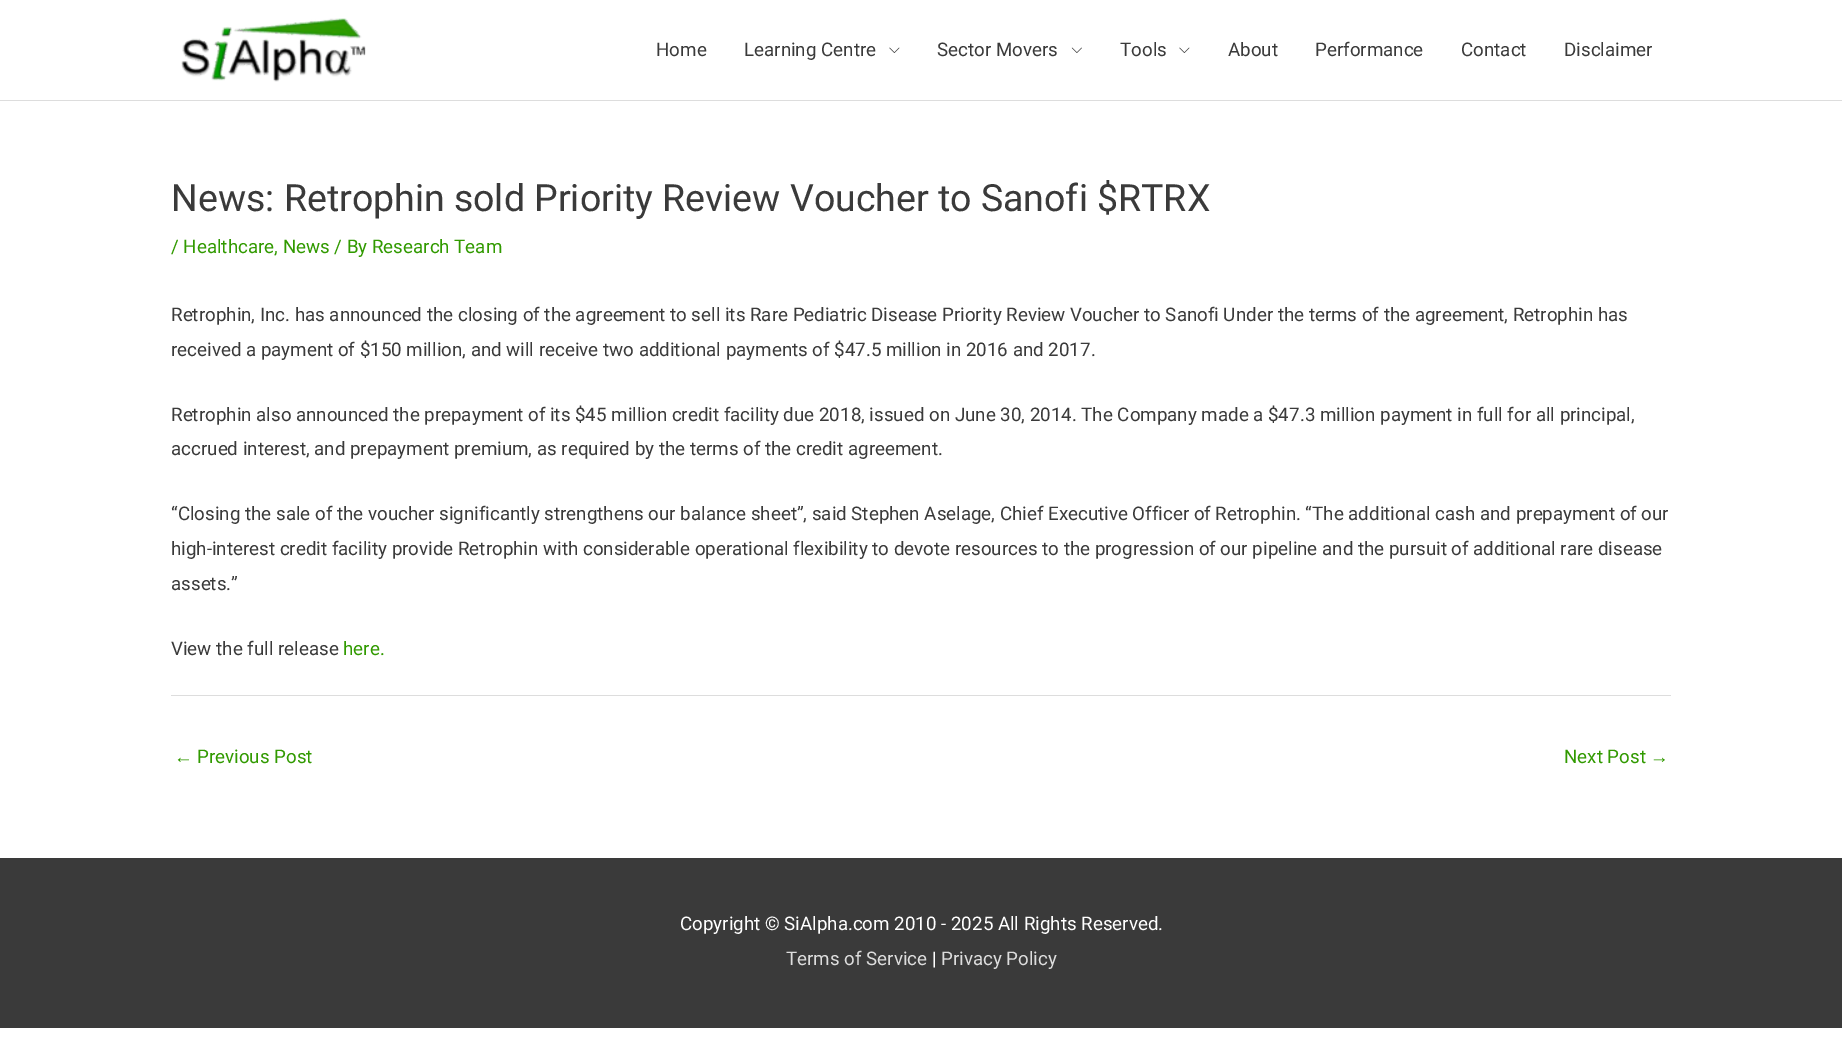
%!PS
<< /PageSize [1842 1059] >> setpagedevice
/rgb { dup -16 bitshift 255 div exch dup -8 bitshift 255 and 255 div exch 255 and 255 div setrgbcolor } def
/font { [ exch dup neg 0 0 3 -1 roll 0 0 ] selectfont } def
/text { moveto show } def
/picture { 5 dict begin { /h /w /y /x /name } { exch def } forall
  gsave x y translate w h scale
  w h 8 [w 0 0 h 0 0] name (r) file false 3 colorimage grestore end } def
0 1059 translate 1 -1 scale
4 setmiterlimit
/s1 { /Roboto-Regular 18.75 font 16#3A3A3A rgb } def
/s2 { /Roboto-Regular 37.5 font 16#3A3A3A rgb } def
/s3 { /Roboto-Regular 18.75 font 16#319A00 rgb } def
/s4 { /LiberationSans-Regular 18.75 font 16#319A00 rgb } def
/s5 { /Roboto-Regular 18.75 font 16#FFFFFF rgb } def
/s6 { /Roboto-Regular 18.75 font 16#DDDDDD rgb } def
16#FFFFFF rgb
0 0 1842 1059 rectfill
16#DDDDDD rgb
0 100 1842 1 rectfill
(pic1.raw) 181 18 185 64 picture
s1
(Home) 656 56 text
(Learning Centre) 744 56 text
(pic2.raw) 889 47 11 6 picture
(Sector Movers) 937 56 text
(pic3.raw) 1071 47 11 6 picture
(Tools) 1120 56 text
(pic2.raw) 1179 47 11 6 picture
(About) 1228 56 text
(Performance) 1315 56 text
(Contact) 1461 56 text
(Disclaimer) 1564 56 text
s2
(News: Retrophin sold Priority Review Voucher to Sanofi $RTRX) 171 211 text
s3
(/ Healthcare, News / By Research Team) 171 253 text
s1
(Retrophin, Inc. has announced the closing of the agreement to sell its Rare Pediatric Disease Priority Review Voucher to Sanofi Under the terms of the agreement, Retrophin has) 171 321 text
(received a payment of $150 million, and will receive two additional payments of $47.5 million in 2016 and 2017.) 171 356 text
(Retrophin also announced the prepayment of its $45 million credit facility due 2018, issued on June 30, 2014. The Company made a $47.3 million payment in full for all principal,) 171 421 text
(accrued interest, and prepayment premium, as required by the terms of the credit agreement.) 171 455 text
(“Closing the sale of the voucher significantly strengthens our balance sheet”, said Stephen Aselage, Chief Executive Officer of Retrophin. “The additional cash and prepayment of our) 171 520 text
(high-interest credit facility provide Retrophin with considerable operational flexibility to devote resources to the progression of our pipeline and the pursuit of additional rare disease) 171 555 text
(assets.”) 171 590 text
(View the full release) 171 655 text
s3
(here.) 343 655 text
16#DDDDDD rgb
171 695 1500 1 rectfill
s4
(←) 174 763 text
s3
(Previous Post) 197 763 text
(Next Post) 1564 763 text
s4
(→) 1650 763 text
16#3A3A3A rgb
0 858 1842 170 rectfill
s5
(Copyright © SiAlpha.com 2010 - 2025 All Rights Reserved.) 680 930 text
s6
(Terms of Service) 786 965 text
s5
(|) 932 965 text
s6
(Privacy Policy) 941 965 text
showpage
